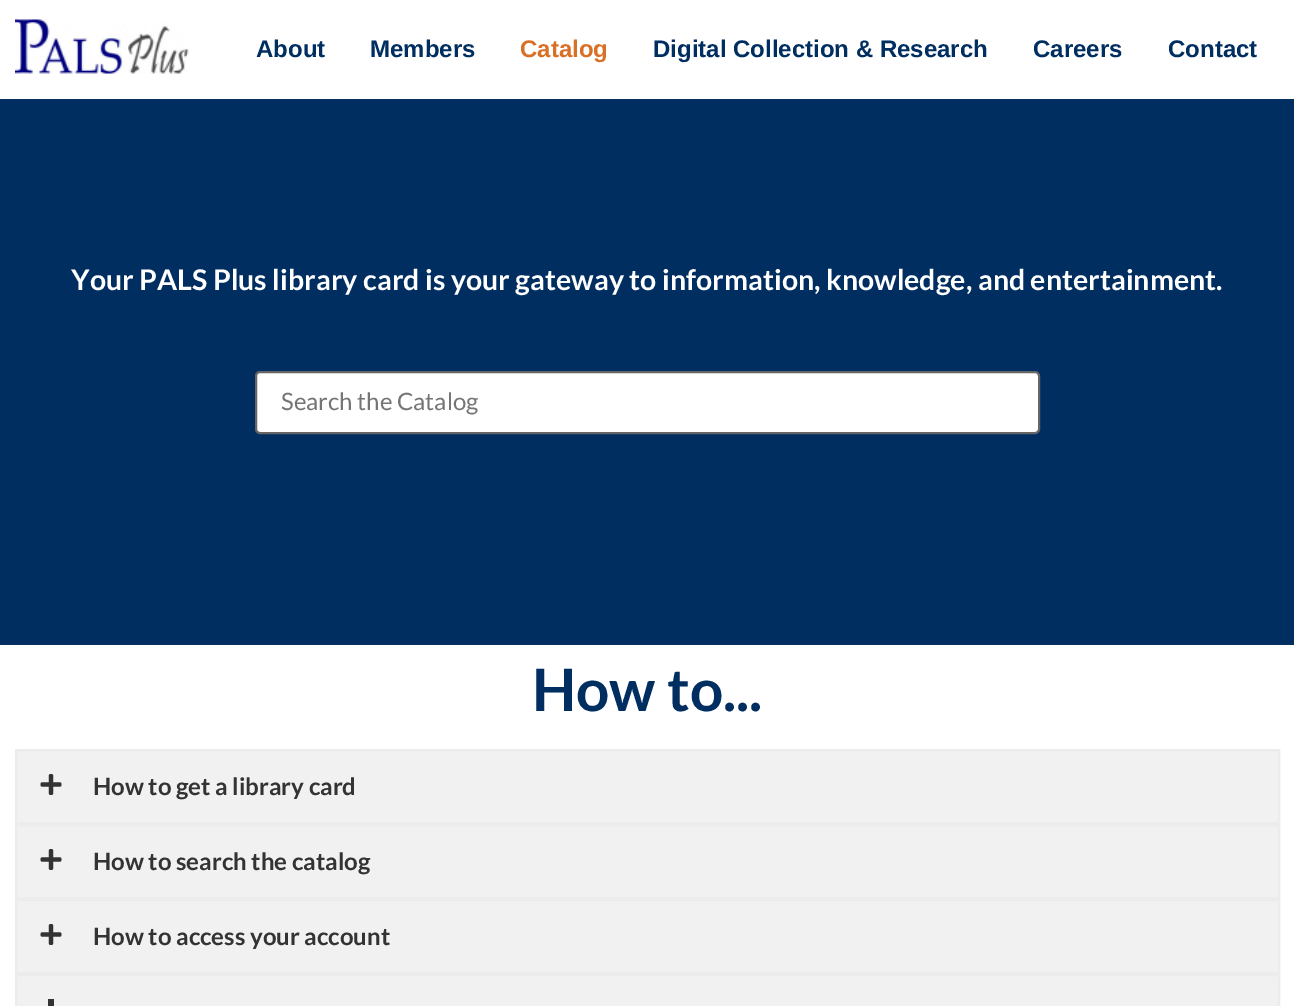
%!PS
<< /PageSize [1294 1006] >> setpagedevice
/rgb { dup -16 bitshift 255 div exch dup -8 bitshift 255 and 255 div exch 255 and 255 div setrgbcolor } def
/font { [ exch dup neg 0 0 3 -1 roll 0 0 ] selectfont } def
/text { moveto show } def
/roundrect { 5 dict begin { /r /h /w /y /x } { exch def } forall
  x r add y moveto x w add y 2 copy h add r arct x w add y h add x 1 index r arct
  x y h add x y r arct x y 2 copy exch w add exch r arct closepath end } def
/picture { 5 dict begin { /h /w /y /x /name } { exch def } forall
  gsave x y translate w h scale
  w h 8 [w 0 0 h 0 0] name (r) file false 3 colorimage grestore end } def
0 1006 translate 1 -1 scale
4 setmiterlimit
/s1 { /LiberationSans-Bold 24 font 16#002E61 rgb } def
/s2 { /LiberationSans-Bold 24 font 16#D87025 rgb } def
/s3 { /Lato-Bold 28.5 font 16#FFFFFF rgb } def
/s4 { /Lato-Regular 24 font 16#757575 rgb } def
/s5 { /Lato-Bold 58.5 font 16#002E61 rgb } def
/s6 { /Lato-Bold 24 font 16#333333 rgb } def
16#FFFFFF rgb
0 0 1294 1006 rectfill
(pic1.raw) 15 19 174 55 picture
s1
(About) 256 57 text
(Members) 370 57 text
s2
(Catalog) 520 57 text
s1
(Digital Collection & Research) 653 57 text
(Careers) 1033 57 text
(Contact) 1168 57 text
0 99 1294 546 rectfill
s3
(Your PALS Plus library card is your gateway to information, knowledge, and entertainment.) 71 290 text
256 372 783 61 4 roundrect gsave fill grestore
16#666666 rgb
2 setlinewidth
stroke
s4
(Search the Catalog) 281 410 text
s5
(How to...) 532 711 text
16#F1F1F1 rgb
16 750 moveto 1279 750 lineto 1279 823 lineto 16 823 lineto closepath gsave fill grestore
16#ECECEC rgb
stroke
(pic2.raw) 40 774 22 21 picture
s6
(How to get a library card) 93 795 text
16#F1F1F1 rgb
16 825 moveto 1279 825 lineto 1279 898 lineto 16 898 lineto closepath gsave fill grestore
16#ECECEC rgb
stroke
(pic2.raw) 40 849 22 21 picture
s6
(How to search the catalog) 93 870 text
16#F1F1F1 rgb
16 900 moveto 1279 900 lineto 1279 973 lineto 16 973 lineto closepath gsave fill grestore
16#ECECEC rgb
stroke
(pic2.raw) 40 924 22 21 picture
s6
(How to access your account) 93 945 text
16#F1F1F1 rgb
16 975 moveto 1279 975 lineto 1279 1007 lineto 16 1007 lineto closepath gsave fill grestore
16#ECECEC rgb
stroke
16#333333 rgb
48 999 6 7 rectfill
showpage
